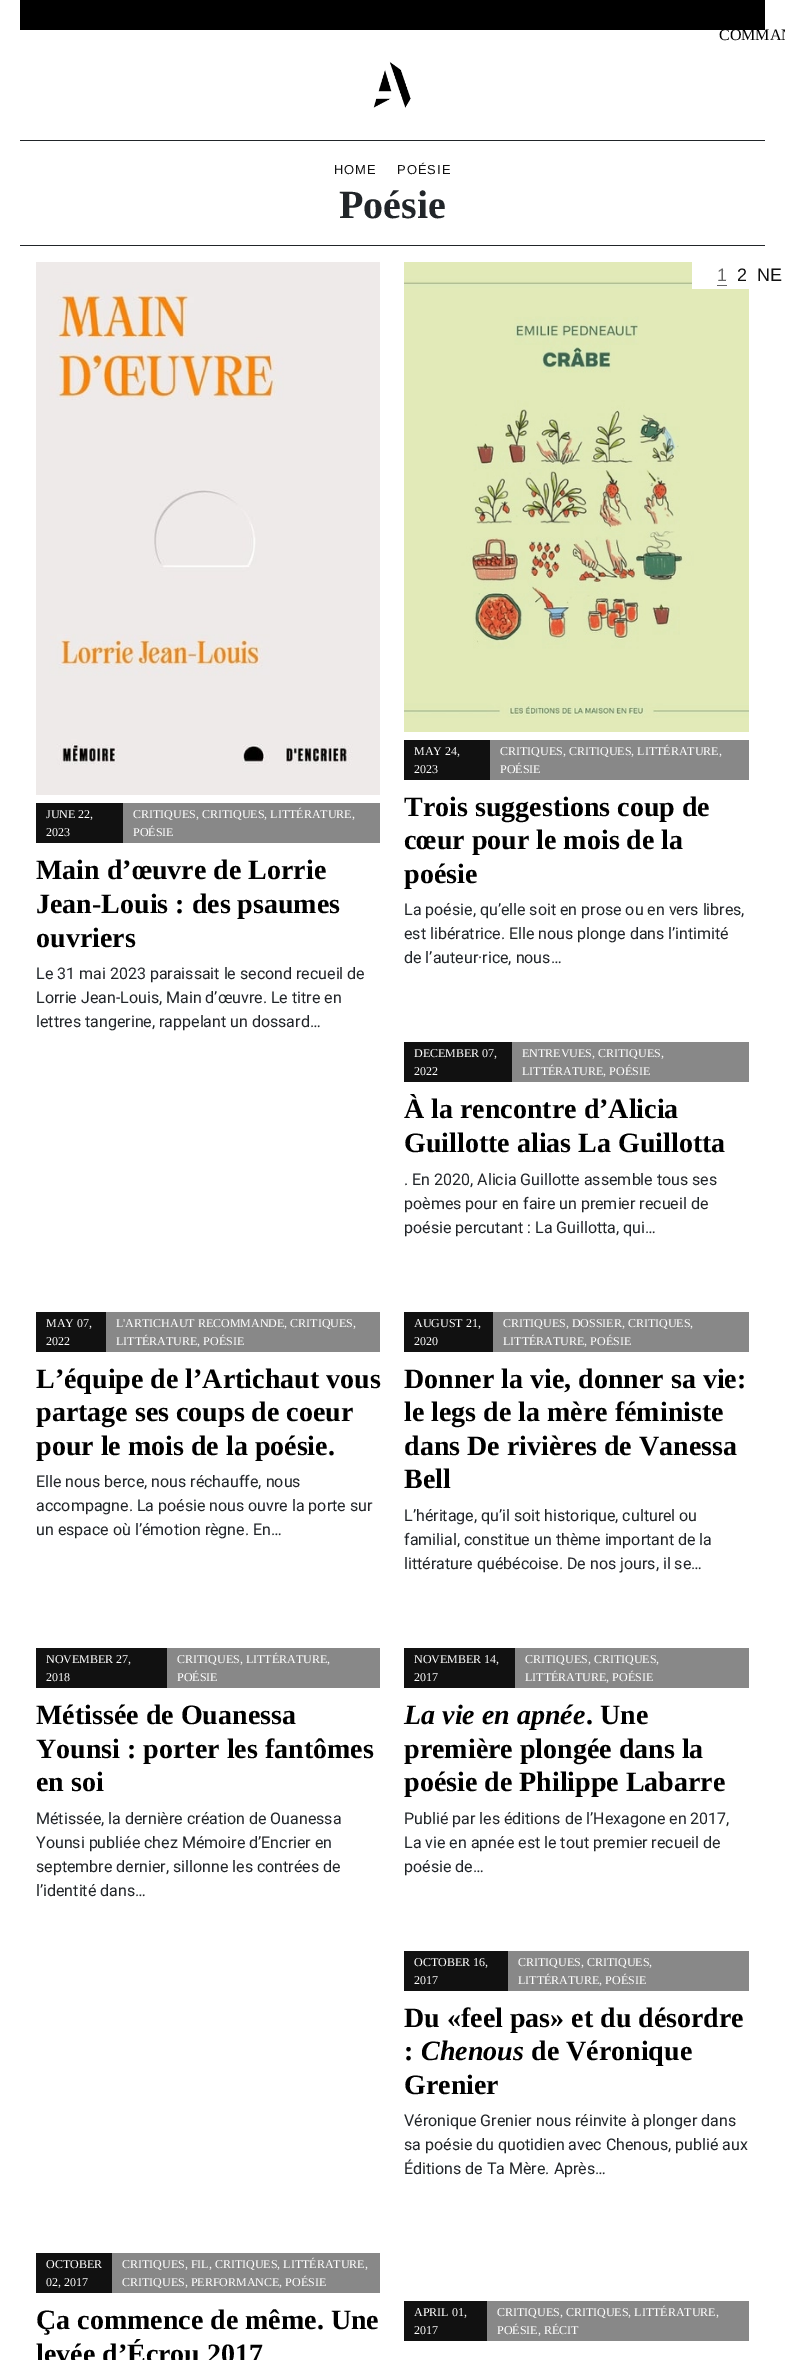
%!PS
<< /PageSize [785 2360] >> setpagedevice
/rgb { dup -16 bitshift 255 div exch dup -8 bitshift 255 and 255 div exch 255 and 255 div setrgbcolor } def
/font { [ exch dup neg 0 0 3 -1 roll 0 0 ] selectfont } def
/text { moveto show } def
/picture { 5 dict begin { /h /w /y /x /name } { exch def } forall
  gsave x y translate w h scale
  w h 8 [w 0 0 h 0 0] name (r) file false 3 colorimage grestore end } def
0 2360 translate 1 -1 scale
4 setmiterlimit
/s1 { /LiberationSerif-Regular 16 font 16#000000 rgb } def
/s2 { /LiberationSerif-Bold 40 font 16#212529 rgb } def
/s3 { /LiberationSans-Regular 18 font 16#666666 rgb } def
/s4 { /LiberationSans-Regular 18 font 16#111111 rgb } def
/s5 { /LiberationSerif-Regular 12 font 16#FFFFFF rgb } def
/s6 { /LiberationSerif-Bold 28 font 16#000000 rgb } def
/s7 { /Roboto-Regular 16 font 16#212529 rgb } def
/s8 { /LiberationSerif-BoldItalic 28 font 16#000000 rgb } def
16#FFFFFF rgb
0 0 785 2360 rectfill
16#000000 rgb
20 0 745 30 rectfill
s1
(COMMAN) 719 40 text
16#212529 rgb
20 140 745 1 rectfill
(pic1.raw) 373 61 38 47 picture
20 245 745 1 rectfill
/LiberationSans-Regular 13 font
16#111111 rgb
334 174 moveto 1 0 (HOME) ashow
397 174 moveto 1 0 (POÉSIE) ashow
s2
(Poésie) 339 218 text
(pic3.raw) 404 262 345 470 picture
16#FFFFFF rgb
692 262 57 27 rectfill
s3
(1) 717 281 text
717 285 10 1 rectfill
s4
(2) 737 281 text
(NE) 757 281 text
(pic2.raw) 36 262 344 533 picture
36 803 87 40 rectfill
s5
(JUNE 22,) 46 818 text
(2023) 46 836 text
16#888888 rgb
123 803 257 40 rectfill
s5
(CRITIQUES, CRITIQUES, LITTÉRATURE,) 133 818 text
(POÉSIE) 133 836 text
s6
(Main d’œuvre de Lorrie) 36 879 text
(Jean-Louis : des psaumes) 36 913 text
(ouvriers) 36 947 text
s7
(Le 31 mai 2023 paraissait le second recueil de) 36 979 text
(Lorrie Jean-Louis, Main d’œuvre. Le titre en) 36 1003 text
(lettres tangerine, rappelant un dossard…) 36 1027 text
16#111111 rgb
404 740 86 40 rectfill
s5
(MAY 24,) 414 755 text
(2023) 414 773 text
16#888888 rgb
490 740 259 40 rectfill
s5
(CRITIQUES, CRITIQUES, LITTÉRATURE,) 500 755 text
(POÉSIE) 500 773 text
s6
(Trois suggestions coup de) 404 816 text
(cœur pour le mois de la) 404 849 text
(poésie) 404 883 text
s7
(La poésie, qu’elle soit en prose ou en vers libres,) 404 915 text
(est libératrice. Elle nous plonge dans l’intimité) 404 939 text
(de l’auteur·rice, nous…) 404 963 text
16#111111 rgb
404 1042 108 40 rectfill
s5
(DECEMBER 07,) 414 1057 text
(2022) 414 1075 text
16#888888 rgb
512 1042 237 40 rectfill
s5
(ENTREVUES, CRITIQUES,) 522 1057 text
(LITTÉRATURE, POÉSIE) 522 1075 text
s6
(À la rencontre d’Alicia) 404 1118 text
(Guillotte alias La Guillotta) 404 1152 text
s7
(. En 2020, Alicia Guillotte assemble tous ses) 404 1185 text
(poèmes pour en faire un premier recueil de) 404 1209 text
(poésie percutant : La Guillotta, qui…) 404 1233 text
16#111111 rgb
36 1312 70 40 rectfill
s5
(MAY 07,) 46 1327 text
(2022) 46 1345 text
16#888888 rgb
106 1312 274 40 rectfill
s5
(L'ARTICHAUT RECOMMANDE, CRITIQUES,) 116 1327 text
(LITTÉRATURE, POÉSIE) 116 1345 text
s6
(L’équipe de l’Artichaut vous) 36 1388 text
(partage ses coups de coeur) 36 1421 text
(pour le mois de la poésie.) 36 1455 text
s7
(Elle nous berce, nous réchauffe, nous) 36 1487 text
(accompagne. La poésie nous ouvre la porte sur) 36 1511 text
(un espace où l’émotion règne. En…) 36 1535 text
16#111111 rgb
404 1312 89 40 rectfill
s5
(AUGUST 21,) 414 1327 text
(2020) 414 1345 text
16#888888 rgb
493 1312 256 40 rectfill
s5
(CRITIQUES, DOSSIER, CRITIQUES,) 503 1327 text
(LITTÉRATURE, POÉSIE) 503 1345 text
s6
(Donner la vie, donner sa vie:) 404 1388 text
(le legs de la mère féministe) 404 1421 text
(dans De rivières de Vanessa) 404 1455 text
(Bell) 404 1488 text
s7
(L’héritage, qu’il soit historique, culturel ou) 404 1521 text
(familial, constitue un thème important de la) 404 1545 text
(littérature québécoise. De nos jours, il se…) 404 1569 text
16#111111 rgb
36 1648 131 40 rectfill
s5
(NOVEMBER 27,) 46 1663 text
(2018) 46 1681 text
16#888888 rgb
167 1648 213 40 rectfill
s5
(CRITIQUES, LITTÉRATURE,) 177 1663 text
(POÉSIE) 177 1681 text
s6
(Métissée de Ouanessa) 36 1724 text
(Younsi : porter les fantômes) 36 1758 text
(en soi) 36 1791 text
s7
(Métissée, la dernière création de Ouanessa) 36 1824 text
(Younsi publiée chez Mémoire d’Encrier en) 36 1848 text
(septembre dernier, sillonne les contrées de) 36 1872 text
(l’identité dans…) 36 1896 text
16#111111 rgb
404 1648 111 40 rectfill
s5
(NOVEMBER 14,) 414 1663 text
(2017) 414 1681 text
16#888888 rgb
515 1648 234 40 rectfill
s5
(CRITIQUES, CRITIQUES,) 525 1663 text
(LITTÉRATURE, POÉSIE) 525 1681 text
s8
(La vie en apnée) 404 1724 text
s6
(. Une) 586 1724 text
(première plongée dans la) 404 1758 text
(poésie de Philippe Labarre) 404 1791 text
s7
(Publié par les éditions de l’Hexagone en 2017,) 404 1824 text
(La vie en apnée est le tout premier recueil de) 404 1848 text
(poésie de…) 404 1872 text
16#111111 rgb
404 1951 104 40 rectfill
s5
(OCTOBER 16,) 414 1966 text
(2017) 414 1984 text
16#888888 rgb
508 1951 241 40 rectfill
s5
(CRITIQUES, CRITIQUES,) 518 1966 text
(LITTÉRATURE, POÉSIE) 518 1984 text
s6
(Du «feel pas» et du désordre) 404 2027 text
(:) 404 2060 text
s8
(Chenous) 421 2060 text
s6
(de Véronique) 531 2060 text
(Grenier) 404 2094 text
s7
(Véronique Grenier nous réinvite à plonger dans) 404 2126 text
(sa poésie du quotidien avec Chenous, publié aux) 404 2150 text
(Éditions de Ta Mère. Après…) 404 2174 text
16#111111 rgb
36 2253 76 40 rectfill
s5
(OCTOBER) 46 2268 text
(02, 2017) 46 2286 text
16#888888 rgb
112 2253 268 40 rectfill
s5
(CRITIQUES, FIL, CRITIQUES, LITTÉRATURE,) 122 2268 text
(CRITIQUES, PERFORMANCE, POÉSIE) 122 2286 text
s6
(Ça commence de même. Une) 36 2329 text
(levée d’Écrou 2017) 36 2363 text
16#111111 rgb
404 2301 83 40 rectfill
s5
(APRIL 01,) 414 2316 text
(2017) 414 2334 text
16#888888 rgb
487 2301 262 40 rectfill
s5
(CRITIQUES, CRITIQUES, LITTÉRATURE,) 497 2316 text
(POÉSIE, RÉCIT) 497 2334 text
showpage
